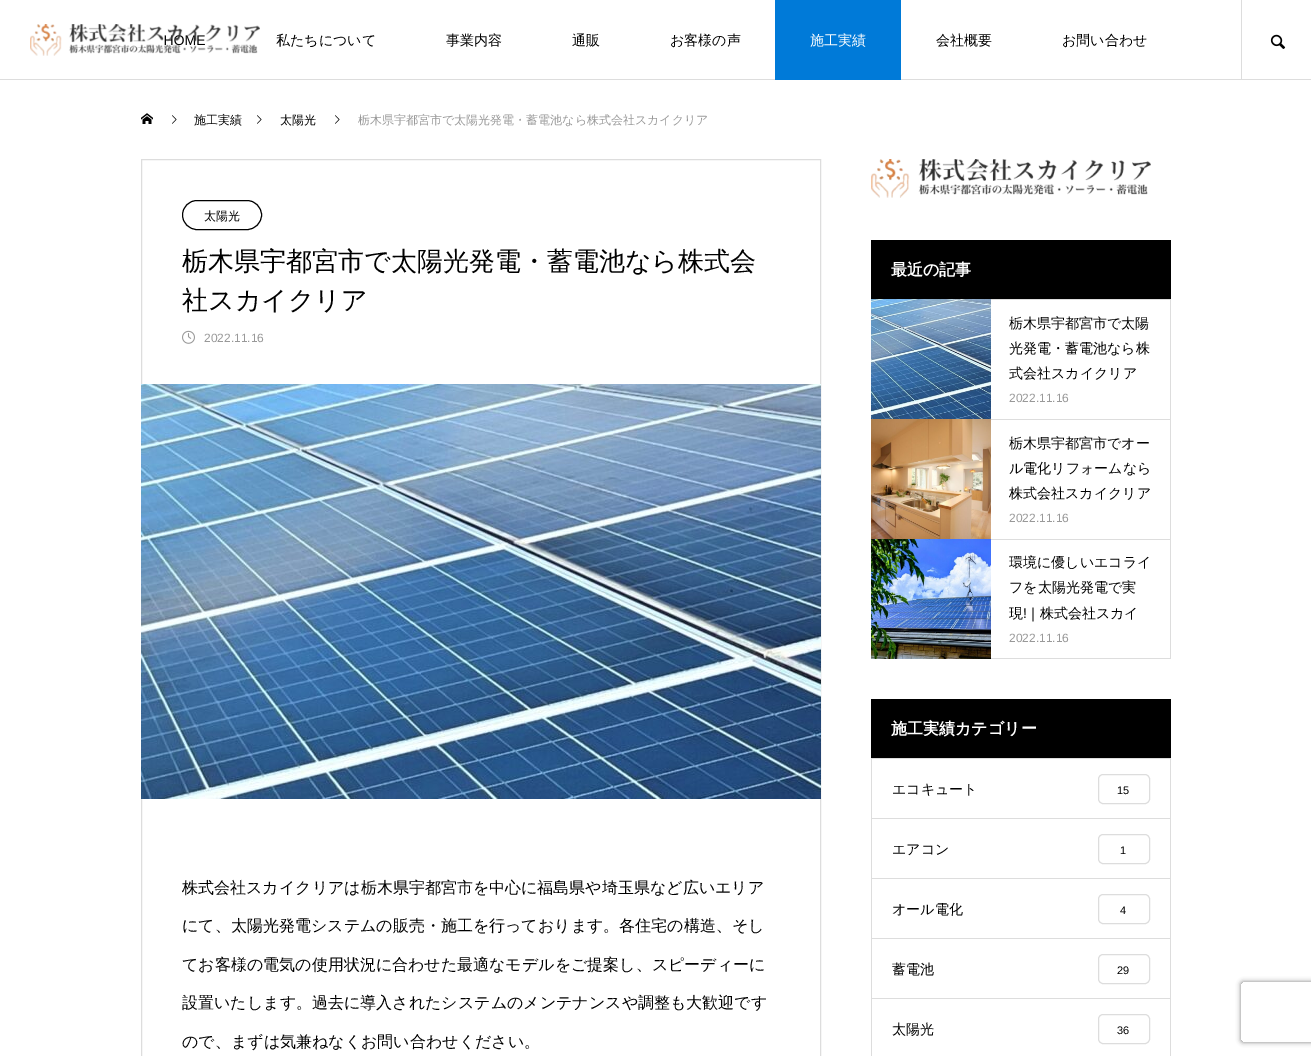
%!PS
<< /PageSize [1311 1056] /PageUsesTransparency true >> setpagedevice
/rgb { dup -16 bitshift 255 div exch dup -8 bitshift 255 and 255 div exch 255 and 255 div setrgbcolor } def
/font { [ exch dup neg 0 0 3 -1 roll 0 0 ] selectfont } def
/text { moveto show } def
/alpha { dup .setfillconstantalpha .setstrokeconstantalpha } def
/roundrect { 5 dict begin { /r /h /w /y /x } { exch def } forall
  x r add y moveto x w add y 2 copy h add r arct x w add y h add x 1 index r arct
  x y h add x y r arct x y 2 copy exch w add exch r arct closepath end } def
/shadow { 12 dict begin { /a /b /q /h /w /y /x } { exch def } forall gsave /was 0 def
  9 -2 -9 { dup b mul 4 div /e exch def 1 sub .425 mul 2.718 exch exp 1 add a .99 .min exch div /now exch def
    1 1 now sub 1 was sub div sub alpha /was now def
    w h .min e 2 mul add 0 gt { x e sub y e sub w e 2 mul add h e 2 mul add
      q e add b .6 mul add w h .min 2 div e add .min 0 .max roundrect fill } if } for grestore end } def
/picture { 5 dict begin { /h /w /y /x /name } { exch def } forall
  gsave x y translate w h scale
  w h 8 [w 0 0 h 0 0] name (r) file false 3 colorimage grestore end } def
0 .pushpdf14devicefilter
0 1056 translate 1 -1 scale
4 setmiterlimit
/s1 { /LiberationSans-Regular 14 font 16#000000 rgb } def
/s2 { /WenQuanYiZenHei-Medium 14 font 16#000000 rgb } def
/s3 { /WenQuanYiZenHei-Medium 14 font 16#FFFFFF rgb } def
/s4 { /WenQuanYiZenHei-Medium 12 font 16#000000 rgb } def
/s5 { /WenQuanYiZenHei-Medium 12 font 16#999999 rgb } def
/s6 { /WenQuanYiZenHei-Medium 26 font 16#000000 rgb } def
/s7 { /LiberationSans-Regular 12 font 16#999999 rgb } def
/s8 { /WenQuanYiZenHei-Medium 16 font 16#000000 rgb } def
/s9 { /WenQuanYiZenHei-Bold 16 font 16#FFFFFF rgb } def
/s10 { /LiberationSans-Regular 11 font 16#000000 rgb } def
16#FFFFFF rgb
0 0 1311 1056 rectfill
16#DDDDDD rgb
0 79 1311 1 rectfill
s1
(HOME) 164 45 text
(pic1.raw) 30 24 230 32 picture
s2
(私たちについて) 276 45 text
(事業内容) 446 45 text
(通販) 572 45 text
(お客様の声) 670 45 text
16#007AD8 rgb
775 0 126 80 rectfill
s3
(施工実績) 810 45 text
s2
(会社概要) 936 45 text
(お問い合わせ) 1062 45 text
16#DDDDDD rgb
1241 0 1 80 rectfill
(pic2.raw) 1270 34 16 15 picture
(pic3.raw) 141 113 12 11 picture
(pic4.raw) 172 115 5 9 picture
s4
(施工実績) 194 124 text
(pic4.raw) 257 115 5 9 picture
(太陽光) 280 124 text
(pic4.raw) 335 115 5 9 picture
s5
(栃木県宇都宮市で太陽光発電・蓄電池なら株式会社スカイクリア) 358 124 text
16#DDDDDD rgb
141.5 159.5 679 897 rectstroke
16#000000 rgb
182.5 200.5 79 29 14.5 roundrect stroke
(太陽光) 204 220 text
s6
(栃木県宇都宮市で太陽光発電・蓄電池なら株式会) 182 270 text
(社スカイクリア) 182 309 text
(pic5.raw) 182 330 13 14 picture
s7
(2022.11.16) 204 342 text
(pic6.raw) 141 384 680 415 picture
s8
(株式会社スカイクリアは栃木県宇都宮市を中心に福島県や埼玉県など広いエリア) 182 893 text
(にて、太陽光発電システムの販売・施工を行っております。各住宅の構造、そし) 182 931 text
(てお客様の電気の使用状況に合わせた最適なモデルをご提案し、スピーディーに) 182 970 text
(設置いたします。過去に導入されたシステムのメンテナンスや調整も大歓迎です) 182 1008 text
(ので、まずは気兼ねなくお問い合わせください。) 182 1047 text
(pic7.raw) 871 159 280 39 picture
871 240 300 59 rectfill
s9
(最近の記事) 891 275 text
(pic8.raw) 871 299 120 120 picture
16#DDDDDD rgb
991 299 180 1 rectfill
1170 299 1 120 rectfill
s2
(栃木県宇都宮市で太陽) 1009 328 text
(光発電・蓄電池なら株) 1009 353 text
(式会社スカイクリア) 1009 378 text
s7
(2022.11.16) 1009 402 text
(pic9.raw) 871 419 120 120 picture
16#DDDDDD rgb
991 419 180 1 rectfill
1170 419 1 120 rectfill
s2
(栃木県宇都宮市でオー) 1009 448 text
(ル電化リフォームなら) 1009 473 text
(株式会社スカイクリア) 1009 498 text
s7
(2022.11.16) 1009 522 text
(pic10.raw) 871 539 120 120 picture
16#DDDDDD rgb
991 539 180 1 rectfill
1170 539 1 120 rectfill
991 658 180 1 rectfill
gsave
1009 550 143 76 rectclip
s2
(環境に優しいエコライ) 1009 567 text
grestore
s2
(フを太陽光発電で実) 1009 592 text
gsave
1009 550 143 76 rectclip
(現) 1009 618 text
grestore
s1
(!) 1023 618 text
s2
(｜株式会社スカイ) 1026 618 text
s7
(2022.11.16) 1009 642 text
16#000000 rgb
871 699 300 59 rectfill
s9
(施工実績カテゴリー) 891 734 text
16#DDDDDD rgb
871 758 300 1 rectfill
1170 758 1 298 rectfill
871 758 1 298 rectfill
872 818 298 1 rectfill
s2
(エコキュート) 892 794 text
16#DDDDDD rgb
1098.5 774.5 51 29 4.5 roundrect stroke
s10
(15) 1117 794 text
16#DDDDDD rgb
872 878 298 1 rectfill
s2
(エアコン) 892 854 text
16#DDDDDD rgb
1098.5 834.5 51 29 4.5 roundrect stroke
s10
(1) 1120 854 text
16#DDDDDD rgb
872 938 298 1 rectfill
s2
(オール電化) 892 914 text
16#DDDDDD rgb
1098.5 894.5 51 29 4.5 roundrect stroke
s10
(4) 1120 914 text
16#DDDDDD rgb
872 998 298 1 rectfill
gsave
892 939 206 59 rectclip
s2
(蓄電池) 892 974 text
grestore
1098.5 954.5 51 29 4.5 roundrect stroke
s10
(29) 1117 974 text
s2
(太陽光) 892 1034 text
16#DDDDDD rgb
1098.5 1014.5 51 29 4.5 roundrect stroke
s10
(36) 1117 1034 text
gsave
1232 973 moveto 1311 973 lineto 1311 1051 lineto 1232 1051 lineto closepath 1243 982 moveto 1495 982 lineto 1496 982 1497 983 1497 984 curveto 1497 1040 lineto 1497 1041 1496 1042 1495 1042 curveto 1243 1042 lineto 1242 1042 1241 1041 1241 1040 curveto 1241 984 lineto 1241 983 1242 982 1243 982 curveto closepath eoclip newpath
16#808080 rgb
1241 982 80 60 2 2.5 1 shadow
grestore
.poppdf14devicefilter showpage
